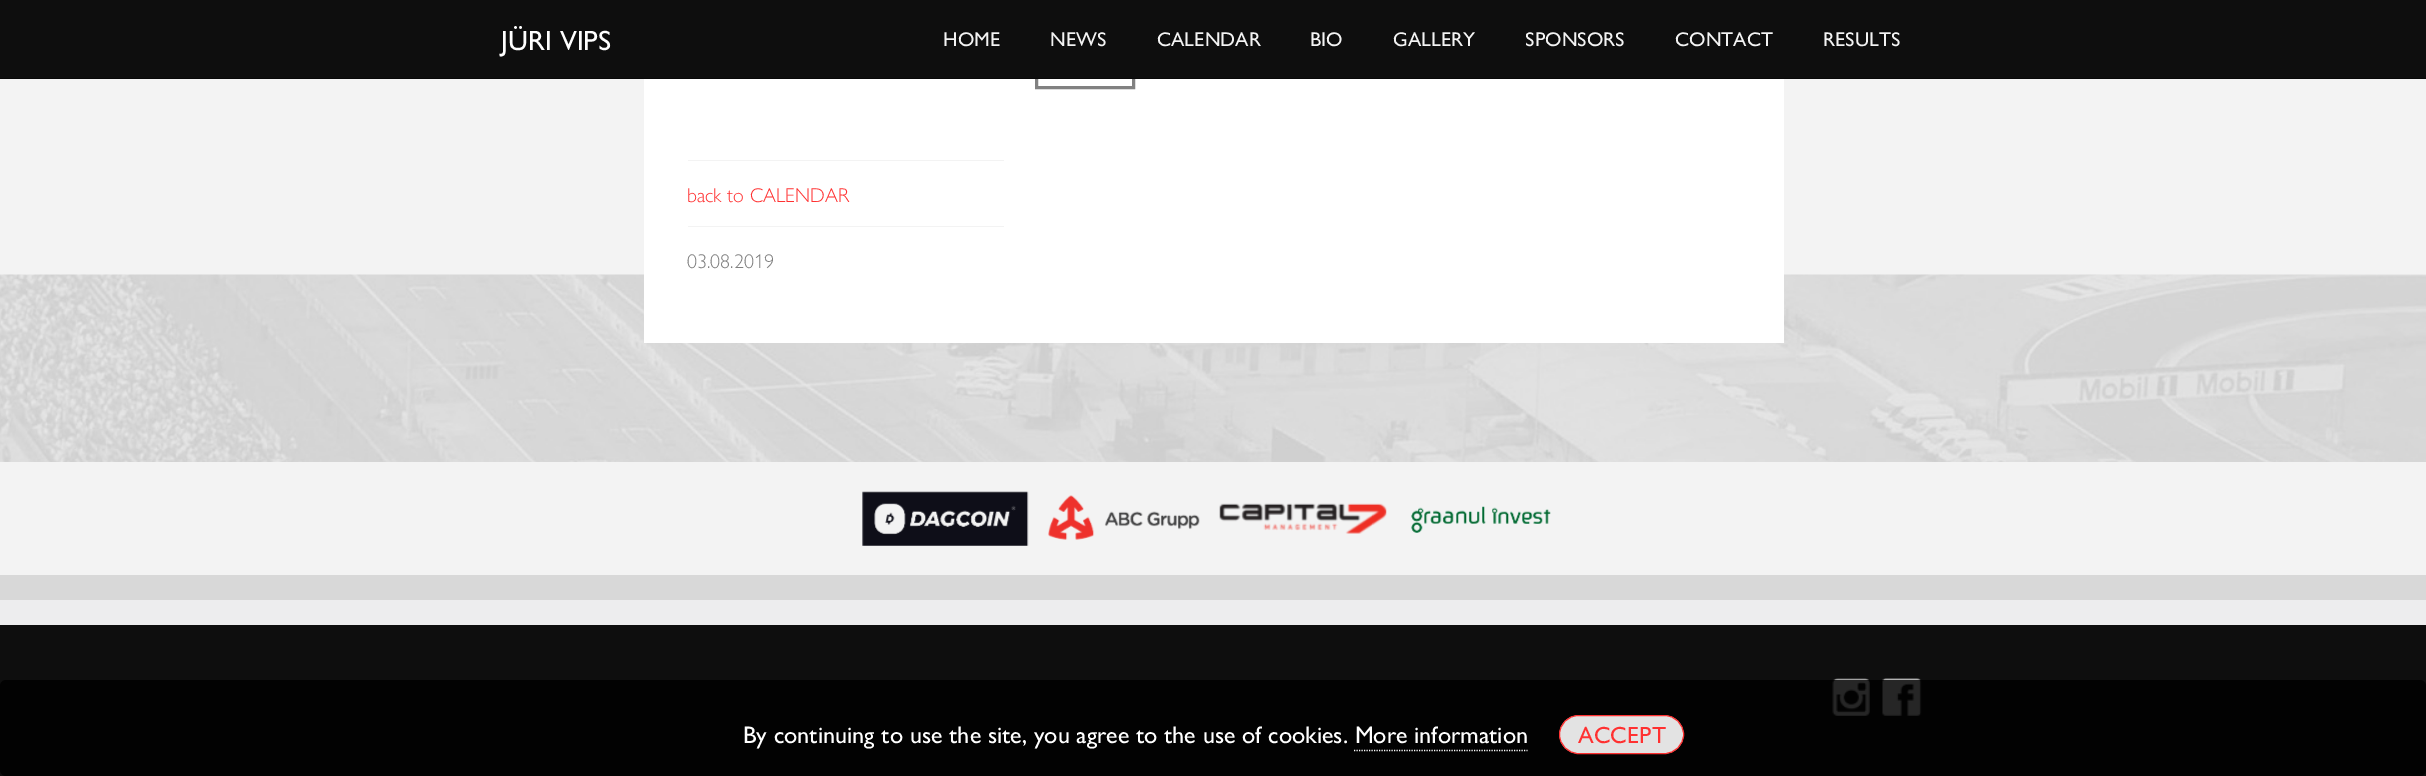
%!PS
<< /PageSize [2426 776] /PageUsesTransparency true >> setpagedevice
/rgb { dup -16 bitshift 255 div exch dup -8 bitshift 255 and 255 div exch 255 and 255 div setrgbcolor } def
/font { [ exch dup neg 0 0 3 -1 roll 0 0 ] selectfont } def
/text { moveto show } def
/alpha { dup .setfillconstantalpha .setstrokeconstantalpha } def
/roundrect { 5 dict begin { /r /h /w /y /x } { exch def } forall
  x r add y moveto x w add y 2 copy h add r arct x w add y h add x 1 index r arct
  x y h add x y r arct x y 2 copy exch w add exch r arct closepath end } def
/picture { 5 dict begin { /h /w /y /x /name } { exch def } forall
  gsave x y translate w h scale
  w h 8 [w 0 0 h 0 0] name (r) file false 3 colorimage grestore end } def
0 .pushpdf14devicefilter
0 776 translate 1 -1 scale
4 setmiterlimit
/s1 { /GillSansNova-Medium 28 font 16#FFFFFF rgb } def
/s2 { /GillSansNova-Medium 20 font 16#F3F3F3 rgb } def
/s3 { /GillSansNova-Light 20 font 16#FF3131 rgb } def
/s4 { /GillSansNova-Light 20 font 16#818181 rgb } def
/s5 { /GillSansNova-Medium 24 font 16#FFFFFF rgb } def
/s6 { /GillSansNova-Medium 23.5 font 16#FF3131 rgb } def
16#EDEDEE rgb
0 0 2426 776 rectfill
16#F3F3F3 rgb
0 79 2426 496 rectfill
(pic1.raw) 0 274 2426 188 picture
16#FFFFFF rgb
644 79 1140 264 rectfill
16#818181 rgb
3 setlinewidth
1036.5 -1.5 97 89 rectstroke
16#0E0E0E rgb
0 0 2426 78 rectfill
16#080808 rgb
0 78 2426 1 rectfill
s1
(JÜRI VIPS) 501 50 text
s2
(HOME) 943 46 text
(NEWS) 1050 46 text
(CALENDAR) 1157 46 text
(BIO) 1310 46 text
(GALLERY) 1393 46 text
(SPONSORS) 1525 46 text
(CONTACT) 1675 46 text
(RESULTS) 1823 46 text
688 160 316 1 rectfill
s3
(back to CALENDAR) 687 202 text
16#F3F3F3 rgb
688 226 316 1 rectfill
s4
(03.08.2019) 687 268 text
16#D8D8D8 rgb
0 575 2426 25 rectfill
(pic2.raw) 862 491 167 55 picture
(pic3.raw) 1048 495 152 45 picture
(pic4.raw) 1219 503 168 31 picture
(pic5.raw) 1411 506 140 27 picture
16#0E0E0E rgb
0 625 2426 151 rectfill
(pic6.raw) 1832 678 38 38 picture
(pic7.raw) 1882 678 40 38 picture
0.85 alpha
16#000000 rgb
0 680 2426 96 6 roundrect fill
1 alpha
s5
(By continuing to use the site, you agree to the use of cookies. More information) 743 743 text
16#E3E3E3 rgb
1559.5 715.5 124 38 19 roundrect gsave fill grestore
16#FF3131 rgb
1 setlinewidth
stroke
s6
(ACCEPT) 1578 743 text
16#FFFFFF rgb
1.2 setlinewidth
[1.25 1.25] 0 setdash
1354 750.5 moveto 1527.5 750.5 lineto stroke
.poppdf14devicefilter showpage
